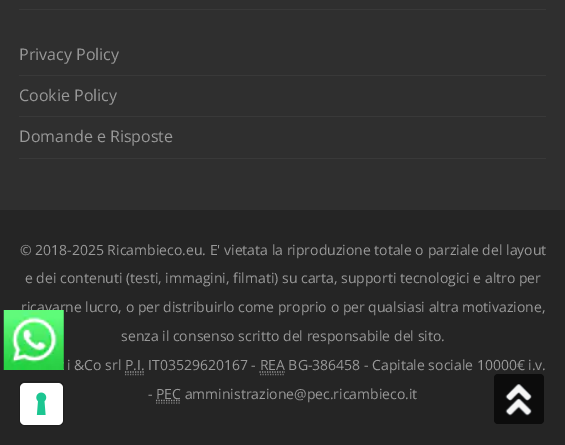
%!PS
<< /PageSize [565 445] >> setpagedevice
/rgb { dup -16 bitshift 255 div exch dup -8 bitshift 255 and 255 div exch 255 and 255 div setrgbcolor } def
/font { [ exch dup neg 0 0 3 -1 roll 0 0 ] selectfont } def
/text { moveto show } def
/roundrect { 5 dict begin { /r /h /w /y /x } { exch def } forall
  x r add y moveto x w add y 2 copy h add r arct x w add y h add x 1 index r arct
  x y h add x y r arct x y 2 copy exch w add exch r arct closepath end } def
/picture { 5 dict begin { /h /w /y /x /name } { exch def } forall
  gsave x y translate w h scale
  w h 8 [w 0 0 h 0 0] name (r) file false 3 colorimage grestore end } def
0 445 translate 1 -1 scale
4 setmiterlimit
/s1 { /OpenSans-Regular 16 font 16#999999 rgb } def
/s2 { /OpenSans-Regular 14 font 16#999999 rgb } def
16#2F2F2F rgb
0 0 565 445 rectfill
16#393939 rgb
19 9 527 1 rectfill
19 75 527 1 rectfill
s1
(Privacy Policy) 19 60 text
16#393939 rgb
19 116 527 1 rectfill
s1
(Cookie Policy) 19 101 text
16#393939 rgb
19 158 527 1 rectfill
s1
(Domande e Risposte) 19 142 text
16#252525 rgb
0 210 565 235 rectfill
s2
(© 2018-2025 Ricambieco.eu. E' vietata la riproduzione totale o parziale del layout) 20 255 text
(e dei contenuti \(testi, immagini, filmati\) su carta, supporti tecnologici e altro per) 25 283 text
(ricavarne lucro, o per distribuirlo come proprio o per qualsiasi altra motivazione,) 21 312 text
(senza il consenso scritto del responsabile del sito.) 121 341 text
(i &Co srl P.I. IT03529620167 - REA BG-386458 - Capitale sociale 10000€ i.v.) 67 370 text
16#777777 rgb
1.2 setlinewidth
[1.25 1.25] 0 setdash
125 374.5 moveto 145 374.5 lineto stroke
16#999999 rgb
125 372 moveto 144.5 372 lineto stroke
16#777777 rgb
260 374.5 moveto 285 374.5 lineto stroke
16#999999 rgb
259.5 372 moveto 285 372 lineto stroke
(-) 148 399 text
16#777777 rgb
156 403 moveto 181 403 lineto stroke
16#999999 rgb
156 400.5 moveto 181 400.5 lineto stroke
(PEC amministrazione@pec.ricambieco.it) 156 399 text
(pic1.raw) 3 310 61 60 picture
16#0C0C0C rgb
494 374 50 50 4 roundrect fill
(pic2.raw) 505 384 27 32 picture
16#1F1F1F rgb
1 setlinewidth
[] 0 setdash
19.5 381.5 44 44 5.5 roundrect stroke
16#FFFFFF rgb
20 383 43 42 5 roundrect fill
(pic3.raw) 36 392 11 23 picture
showpage
